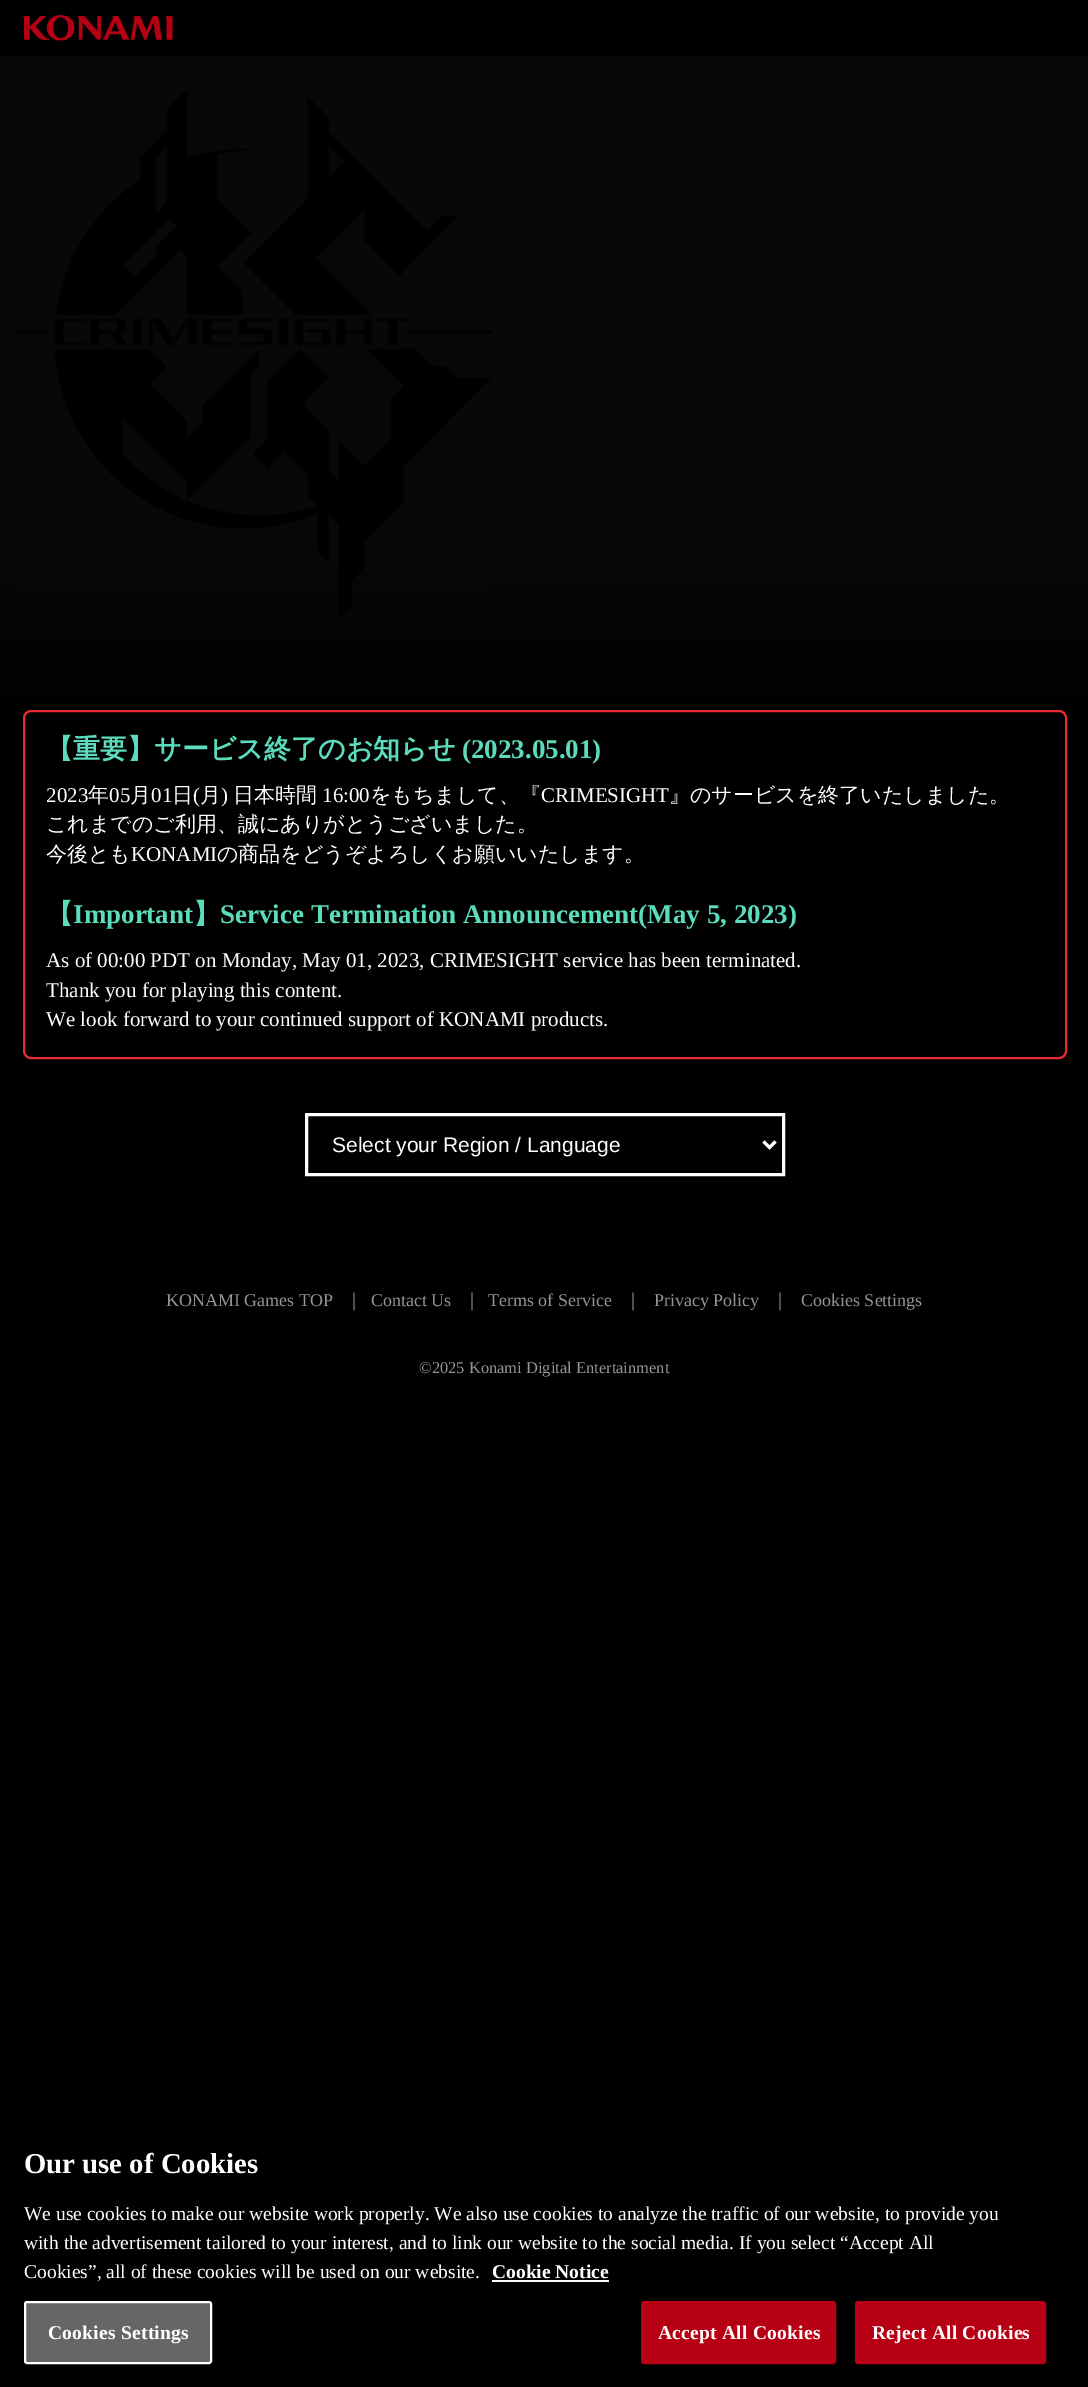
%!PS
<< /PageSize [1088 2387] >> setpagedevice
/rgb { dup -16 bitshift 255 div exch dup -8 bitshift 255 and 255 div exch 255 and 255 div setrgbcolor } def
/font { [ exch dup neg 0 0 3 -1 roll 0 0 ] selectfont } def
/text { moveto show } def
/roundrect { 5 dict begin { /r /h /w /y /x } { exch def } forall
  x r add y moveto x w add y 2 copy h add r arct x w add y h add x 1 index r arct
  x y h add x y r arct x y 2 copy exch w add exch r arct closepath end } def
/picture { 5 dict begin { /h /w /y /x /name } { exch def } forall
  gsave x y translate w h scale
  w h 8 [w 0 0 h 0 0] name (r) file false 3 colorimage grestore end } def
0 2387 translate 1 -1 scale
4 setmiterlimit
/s1 { /WenQuanYiZenHei-Bold 27 font 16#5BDDBD rgb } def
/s2 { /LiberationSerif-Bold 27 font 16#5BDDBD rgb } def
/s3 { /LiberationSerif-Regular 21 font 16#FFFFFF rgb } def
/s4 { /WenQuanYiZenHei-Medium 21 font 16#FFFFFF rgb } def
/s5 { /LiberationSans-Regular 21 font 16#FFFFFF rgb } def
/s6 { /LiberationSerif-Regular 18 font 16#959595 rgb } def
/s7 { /WenQuanYiZenHei-Medium 18 font 16#959595 rgb } def
/s8 { /LiberationSerif-Regular 16.5 font 16#959595 rgb } def
/s9 { /LiberationSerif-Bold 28.75 font 16#FFFFFF rgb } def
/s10 { /LiberationSerif-Regular 19.5 font 16#FFFFFF rgb } def
/s11 { /LiberationSerif-Bold 19.5 font 16#FFFFFF rgb } def
16#000000 rgb
0 0 1088 2387 rectfill
(pic1.raw) 22 15 151 26 picture
gsave 0 56 moveto 1088 56 lineto 1088 695 lineto 0 695 lineto closepath clip newpath
<< /ShadingType 2 /ColorSpace /DeviceRGB /Coords [544 55 545 1230] /Extend [true true] /Function << /FunctionType 3 /Domain [0 1] /Functions [<< /FunctionType 2 /Domain [0 1] /C0 [0.027 0.031 0.035] /C1 [0.027 0.031 0.035] /N 1 >> << /FunctionType 2 /Domain [0 1] /C0 [0.027 0.031 0.035] /C1 [0 0 0] /N 1 >> << /FunctionType 2 /Domain [0 1] /C0 [0 0 0] /C1 [0 0 0] /N 1 >>] /Bounds [0.4 0.6] /Encode [0 1 0 1 0 1] >> >> shfill grestore
(pic2.raw) 15 89 478 528 picture
16#EA2B30 rgb
2 setlinewidth
24 711 1042 347 7 roundrect stroke
s1
(【重要】サービス終了のお知らせ) 46 758 text
s2
(\(2023.05.01\)) 462 758 text
s3
(2023) 46 802 text
s4
(年) 88 802 text
s3
(05) 109 802 text
s4
(月) 130 802 text
s3
(01) 151 802 text
s4
(日) 172 802 text
s3
(\() 193 802 text
s4
(月) 200 802 text
s3
(\)) 221 802 text
s4
(日本時間) 233 802 text
s3
(16:00) 322 802 text
s4
(をもちまして、『) 370 802 text
s3
(CRIMESIGHT) 541 802 text
s4
(』のサービスを終了いたしました。) 669 802 text
(これまでのご利用、誠にありがとうございました。) 46 831 text
(今後とも) 46 861 text
s3
(KONAMI) 131 861 text
s4
(の商品をどうぞよろしくお願いいたします。) 217 861 text
s1
(【) 46 923 text
s2
(Important) 73 923 text
s1
(】) 193 923 text
s2
(Service Termination Announcement\(May 5, 2023\)) 220 923 text
s3
(As of 00:00 PDT on Monday, May 01, 2023, CRIMESIGHT service has been terminated.) 46 967 text
(Thank you for playing this content.) 46 997 text
(We look forward to your continued support of KONAMI products.) 46 1026 text
3 setlinewidth
306.5 1114.5 477 60 rectstroke
763.5 1141.5 moveto 769.5 1147.5 lineto 775.5 1141.5 lineto stroke
s5
(Select your Region / Language) 332 1152 text
s6
(KONAMI Games TOP) 166 1306 text
s7
(｜) 345 1306 text
s6
(Contact Us) 371 1306 text
s7
(｜) 463 1306 text
s6
(Terms of Service) 488 1306 text
s7
(｜) 624 1306 text
s6
(Privacy Policy) 654 1306 text
s7
(｜) 771 1306 text
s6
(Cookies Settings) 801 1306 text
s8
(©2025 Konami Digital Entertainment) 419 1373 text
s9
(Our use of Cookies) 24 2173 text
s10
(We use cookies to make our website work properly. We also use cookies to analyze the traffic of our website, to provide you) 24 2220 text
(with the advertisement tailored to your interest, and to link our website to the social media. If you select “Accept All) 24 2249 text
(Cookies”, all of these cookies will be used on our website.) 24 2278 text
s11
(Cookie Notice) 492 2278 text
492 2280 117 2 rectfill
16#666666 rgb
25 2302 186 61 2 roundrect gsave fill grestore
16#FFFFFF rgb
2 setlinewidth
stroke
48 2339 moveto 0.25 0 (Cookies Settings) ashow
16#B70014 rgb
642 2302 193 61 2 roundrect gsave fill grestore
stroke
16#FFFFFF rgb
658 2339 moveto 0.25 0 (Accept All Cookies) ashow
16#B70014 rgb
856 2302 189 61 2 roundrect gsave fill grestore
stroke
16#FFFFFF rgb
872 2339 moveto 0.25 0 (Reject All Cookies) ashow
showpage
